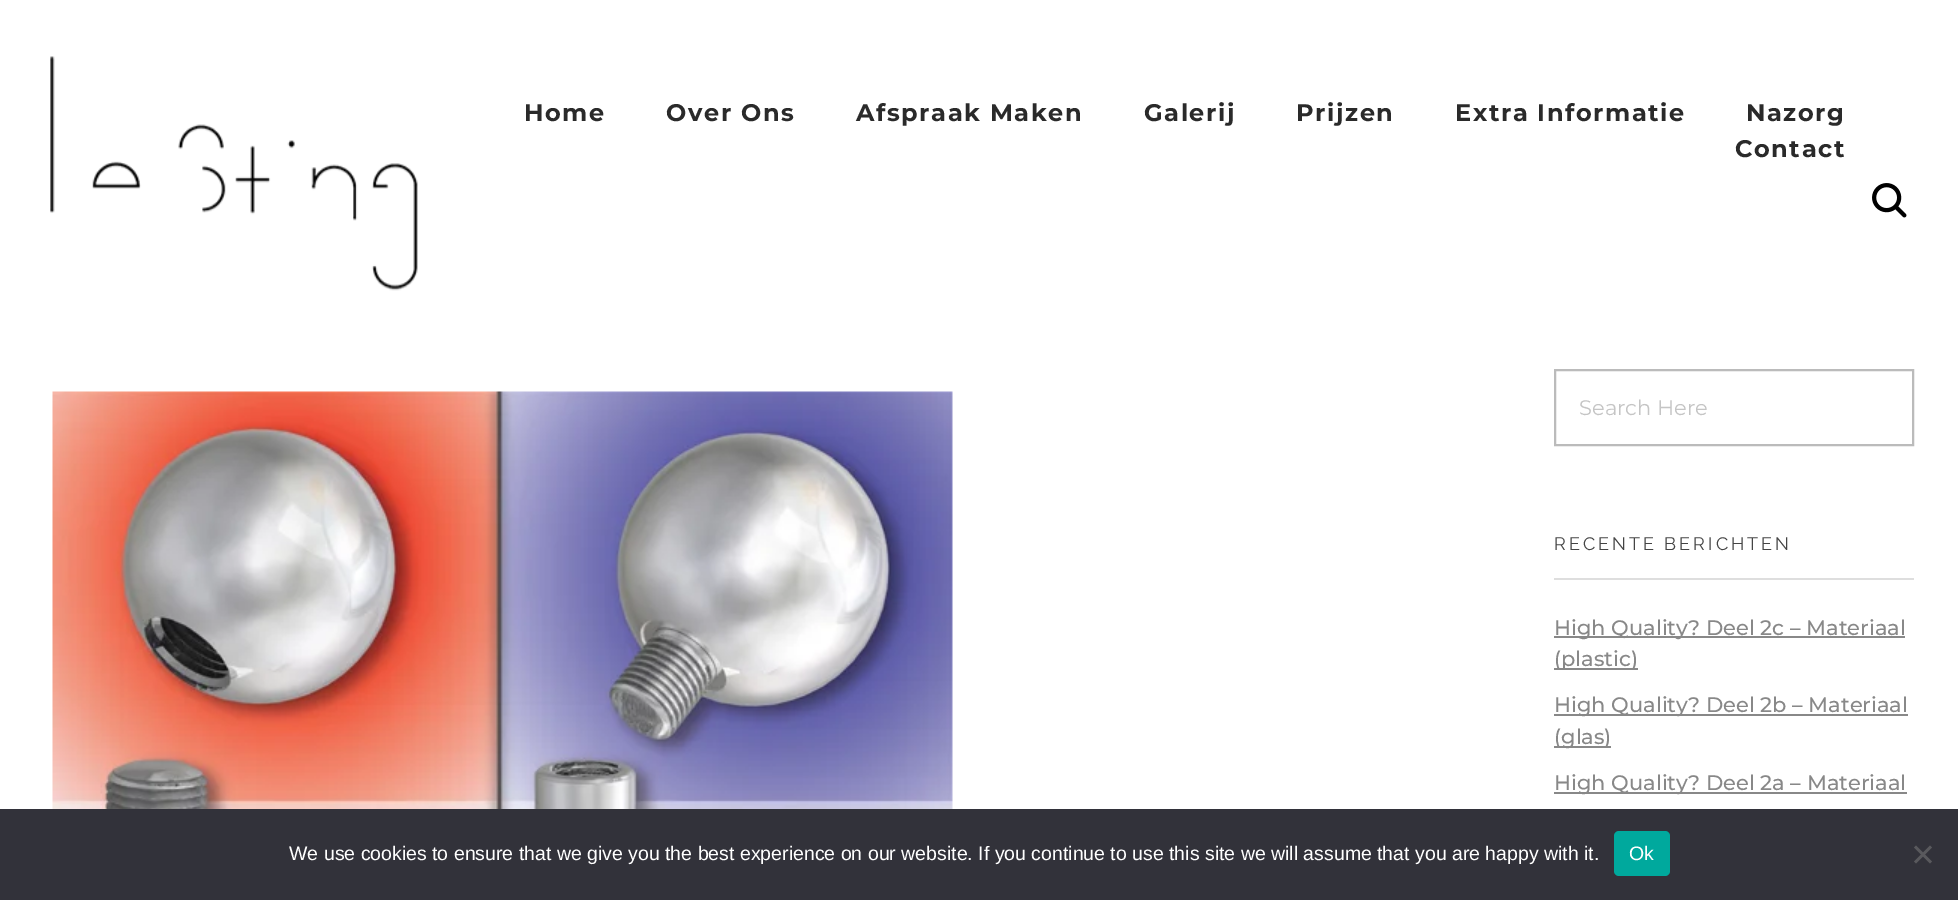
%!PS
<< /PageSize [1958 900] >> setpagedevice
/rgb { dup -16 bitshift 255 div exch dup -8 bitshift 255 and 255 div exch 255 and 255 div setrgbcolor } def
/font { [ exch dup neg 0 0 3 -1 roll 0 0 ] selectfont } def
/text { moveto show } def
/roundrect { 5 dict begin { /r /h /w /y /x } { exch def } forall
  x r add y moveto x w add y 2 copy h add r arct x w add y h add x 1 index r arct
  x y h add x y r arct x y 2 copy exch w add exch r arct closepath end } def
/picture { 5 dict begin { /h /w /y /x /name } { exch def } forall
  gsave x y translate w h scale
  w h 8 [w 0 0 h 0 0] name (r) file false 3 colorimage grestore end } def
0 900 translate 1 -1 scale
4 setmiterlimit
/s1 { /Montserrat-Regular 21 font 16#C5C5C5 rgb } def
/s2 { /Montserrat-Medium 21 font 16#888888 rgb } def
/s3 { /LiberationSans-Regular 19.5 font 16#FFFFFF rgb } def
16#FFFFFF rgb
0 0 1958 900 rectfill
(pic1.raw) 50 56 368 235 picture
/Montserrat-Bold 24 font
16#2A2A2A rgb
524 121 moveto 1.6 0 (Home) ashow
666 121 moveto 1.6 0 (Over Ons) ashow
856 121 moveto 1.6 0 (Afspraak Maken) ashow
1144 121 moveto 1.6 0 (Galerij) ashow
1296 121 moveto 1.6 0 (Prijzen) ashow
1455 121 moveto 1.6 0 (Extra Informatie) ashow
1746 121 moveto 1.6 0 (Nazorg) ashow
1735 157 moveto 1.6 0 (Contact) ashow
(pic2.raw) 1872 183 35 35 picture
(pic3.raw) 52 391 901 418 picture
16#BBBBBB rgb
2 setlinewidth
1555 370 358 75 rectstroke
s1
(Search Here) 1579 415 text
16#DEDEDE rgb
1554 578 360 2 rectfill
/Raleway-Regular 18 font
16#444444 rgb
1554 550 moveto 3 0 (RECENTE BERICHTEN) ashow
16#888888 rgb
1554 636 351 2 rectfill
s2
(High Quality? Deel 2c – Materiaal) 1554 635 text
1554 668 84 2 rectfill
(\(plastic\)) 1554 666 text
1554 714 354 2 rectfill
(High Quality? Deel 2b – Materiaal) 1554 712 text
1554 746 57 2 rectfill
(\(glas\)) 1554 744 text
1554 792 353 2 rectfill
(High Quality? Deel 2a – Materiaal) 1554 790 text
16#32323A rgb
0 809 1958 91 rectfill
s3
(We use cookies to ensure that we give you the best experience on our website. If you continue to use this site we will assume that you are happy with it.) 289 860 text
16#00A99D rgb
1614 831 56 45 5 roundrect fill
s3
(Ok) 1629 860 text
16#59595D rgb
1930 845.5 moveto 1932 847.5 lineto 1916 863.5 lineto 1914 861.5 lineto closepath fill
1914 847.5 moveto 1916 845.5 lineto 1932 861.5 lineto 1930 863.5 lineto closepath fill
showpage
